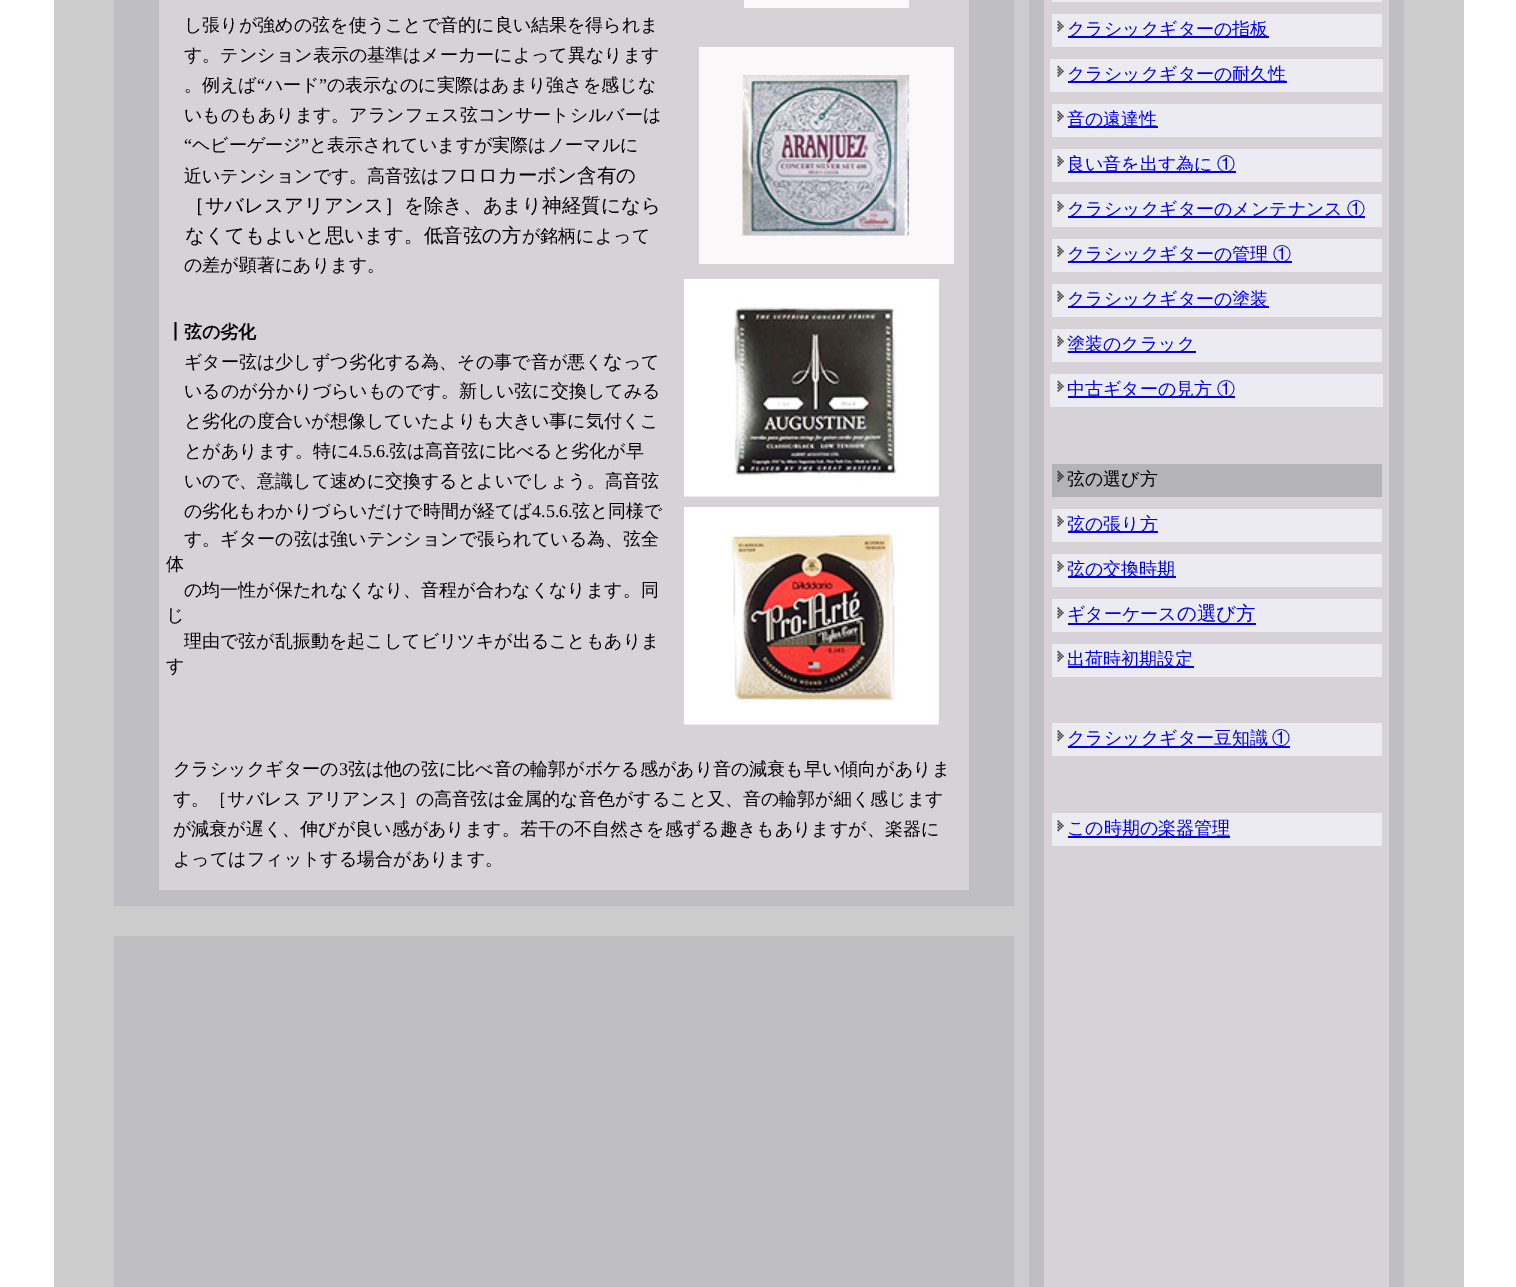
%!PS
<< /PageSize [1516 1287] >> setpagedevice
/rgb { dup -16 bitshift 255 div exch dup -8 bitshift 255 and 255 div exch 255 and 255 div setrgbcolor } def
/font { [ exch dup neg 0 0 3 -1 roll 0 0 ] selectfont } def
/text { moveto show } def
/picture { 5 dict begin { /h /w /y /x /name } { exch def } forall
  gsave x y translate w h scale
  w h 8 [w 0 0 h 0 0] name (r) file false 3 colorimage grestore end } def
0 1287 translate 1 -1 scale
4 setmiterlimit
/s1 { /WenQuanYiZenHei-Medium 18 font 16#000000 rgb } def
/s2 { /LiberationSerif-Regular 18 font 16#000000 rgb } def
/s3 { /WenQuanYiZenHei-Medium 19.5 font 16#000000 rgb } def
/s4 { /WenQuanYiZenHei-Bold 18 font 16#000000 rgb } def
/s5 { /WenQuanYiZenHei-Medium 18 font 16#0000EE rgb } def
/s6 { /WenQuanYiZenHei-Medium 19.5 font 16#0000EE rgb } def
16#FFFFFF rgb
0 0 1516 1287 rectfill
16#CCCCCC rgb
54 0 1410 1287 rectfill
16#BFBEC2 rgb
114 0 900 906 rectfill
16#D6D2D7 rgb
159 0 810 890 rectfill
s1
(し張りが強めの弦を使うことで音的に良い結果を得られま) 184 31 text
(す。テンション表示の基準はメーカーによって異なります) 184 61 text
(。例えば) 184 91 text
s2
(“) 257 91 text
s1
(ハード) 265 91 text
s2
(”) 319 91 text
s1
(の表示なのに実際はあまり強さを感じな) 327 91 text
(いものもあります。アランフェス弦コンサートシルバーは) 184 121 text
s2
(“) 184 151 text
s1
(ヘビーゲージ) 192 151 text
s2
(”) 301 151 text
s1
(と表示されていますが実際はノーマルに) 309 151 text
(近いテンションです。高音弦はフ) 184 182 text
s3
(ロロカーボン含有の) 458 182 text
(［サバレスアリアンス］を除き、あまり神経質になら) 185 212 text
(なくてもよいと思います。低音弦の方) 185 242 text
s1
(が銘柄によって) 522 242 text
(の差が顕著にあります。) 184 271 text
s4
(┃弦の劣化) 166 338 text
s1
(ギター弦は少しずつ劣化する為、その事で音が悪く) 184 368 text
s3
(な) 603 368 text
s1
(って) 623 368 text
(いるのが分かりづらいものです。新しい弦に交換してみる) 184 397 text
(と劣化の度合いが想像していたよりも大きい事に気付くこ) 184 427 text
(とがあります。特に) 184 457 text
s2
(4.5.6.) 349 457 text
s1
(弦は高音弦に比べると劣化が早) 389 457 text
(いので、意識して速めに交換するとよいでしょう。高音弦) 184 487 text
(の劣化もわかりづらいだけで時間が経てば) 184 517 text
s2
(4.5.6.) 532 517 text
s1
(弦と同様で) 572 517 text
(す。ギターの弦は強いテンションで張られている為、弦全) 184 545 text
(体) 166 570 text
(の均一性が保たれなくなり、音程が合わなくなります。同) 184 596 text
(じ) 166 621 text
(理由で弦が乱振動を起こしてビリツキが出ることもありま) 184 647 text
(す) 166 672 text
16#FAF8F8 rgb
744 0 165 8 rectfill
699 47 255 217 rectfill
(pic1.raw) 742 75 167 161 picture
(pic2.raw) 684 279 255 218 picture
(pic3.raw) 684 507 255 218 picture
s1
(クラシックギターの) 173 775 text
s2
(3) 339 775 text
s1
(弦は他の弦に比べ音の輪郭がボケる感があり音の減衰も早い傾向がありま) 348 775 text
173 805 moveto -1 0 32 (す。［サバレス アリアンス］の高音弦は金属的な音色がすること又、音の輪郭が細く感じます) widthshow
(が減衰が遅く、伸びが良い感があります。若干の不自然さを感ずる趣きもありますが、楽器に) 173 835 text
(よってはフィットする場合があります。) 173 865 text
16#BFBEC2 rgb
114 936 900 351 rectfill
1029 0 375 1287 rectfill
16#D6D2D7 rgb
1044 0 345 1287 rectfill
16#EBEBF1 rgb
1052 0 330 2 rectfill
1052 14 330 33 rectfill
(pic4.raw) 1057 20 7 12 picture
16#0000EE rgb
1068 36 201 2 rectfill
(クラシックギターの指板) 1067 35 text
16#EBEBF1 rgb
1050 59 333 33 rectfill
(pic4.raw) 1057 65 7 12 picture
16#0000EE rgb
1068 81 219 2 rectfill
(クラシックギターの耐久性) 1067 80 text
16#EBEBF1 rgb
1052 104 330 33 rectfill
(pic4.raw) 1057 110 7 12 picture
16#0000EE rgb
1068 126 90 2 rectfill
(音の遠達性) 1067 125 text
16#EBEBF1 rgb
1052 149 330 33 rectfill
(pic4.raw) 1057 155 7 12 picture
16#0000EE rgb
1068 171 168 2 rectfill
1067 170 moveto -1 0 32 (良い音を出す為に ①) widthshow
16#EBEBF1 rgb
1052 194 330 33 rectfill
(pic4.raw) 1057 200 7 12 picture
16#0000EE rgb
1068 216 297 2 rectfill
1067 215 moveto -1 0 32 (クラシックギターのメンテナンス ①) widthshow
16#EBEBF1 rgb
1052 239 330 33 rectfill
(pic4.raw) 1057 245 7 12 picture
16#0000EE rgb
1068 261 224 2 rectfill
1067 260 moveto -1 0 32 (クラシックギターの管理 ①) widthshow
16#EBEBF1 rgb
1052 284 330 33 rectfill
(pic4.raw) 1057 290 7 12 picture
16#0000EE rgb
1068 306 201 2 rectfill
(クラシックギターの塗装) 1067 305 text
16#EBEBF1 rgb
1052 329 330 33 rectfill
(pic4.raw) 1057 335 7 12 picture
16#0000EE rgb
1068 351 128 2 rectfill
(塗装のクラック) 1067 350 text
16#EBEBF1 rgb
1050 374 333 33 rectfill
(pic4.raw) 1057 380 7 12 picture
16#0000EE rgb
1068 396 167 2 rectfill
1067 395 moveto -1 0 32 (中古ギターの見方 ①) widthshow
16#B4B3B6 rgb
1052 464 330 33 rectfill
(pic5.raw) 1057 470 7 12 picture
s1
(弦の選び方) 1067 485 text
16#EBEBF1 rgb
1052 509 330 33 rectfill
(pic4.raw) 1057 515 7 12 picture
16#0000EE rgb
1068 531 90 2 rectfill
(弦の張り方) 1067 530 text
16#EBEBF1 rgb
1052 554 330 33 rectfill
(pic4.raw) 1057 560 7 12 picture
16#0000EE rgb
1068 576 108 2 rectfill
(弦の交換時期) 1067 575 text
16#EBEBF1 rgb
1052 599 330 33 rectfill
(pic6.raw) 1057 607 7 12 picture
s5
(ギターケース) 1067 620 text
1068 623 188 2 rectfill
s6
(の選び方) 1177 620 text
16#EBEBF1 rgb
1052 644 330 33 rectfill
(pic4.raw) 1057 650 7 12 picture
16#0000EE rgb
1068 666 126 2 rectfill
s5
(出荷時初期設定) 1067 665 text
16#EBEBF1 rgb
1052 723 330 33 rectfill
(pic6.raw) 1057 730 7 12 picture
16#0000EE rgb
1068 746 222 2 rectfill
1067 744 moveto -1 0 32 (クラシックギター豆知識 ①) widthshow
16#EBEBF1 rgb
1052 813 330 33 rectfill
(pic6.raw) 1057 820 7 12 picture
16#0000EE rgb
1068 836 162 2 rectfill
(この時期の楽器管理) 1067 834 text
showpage
